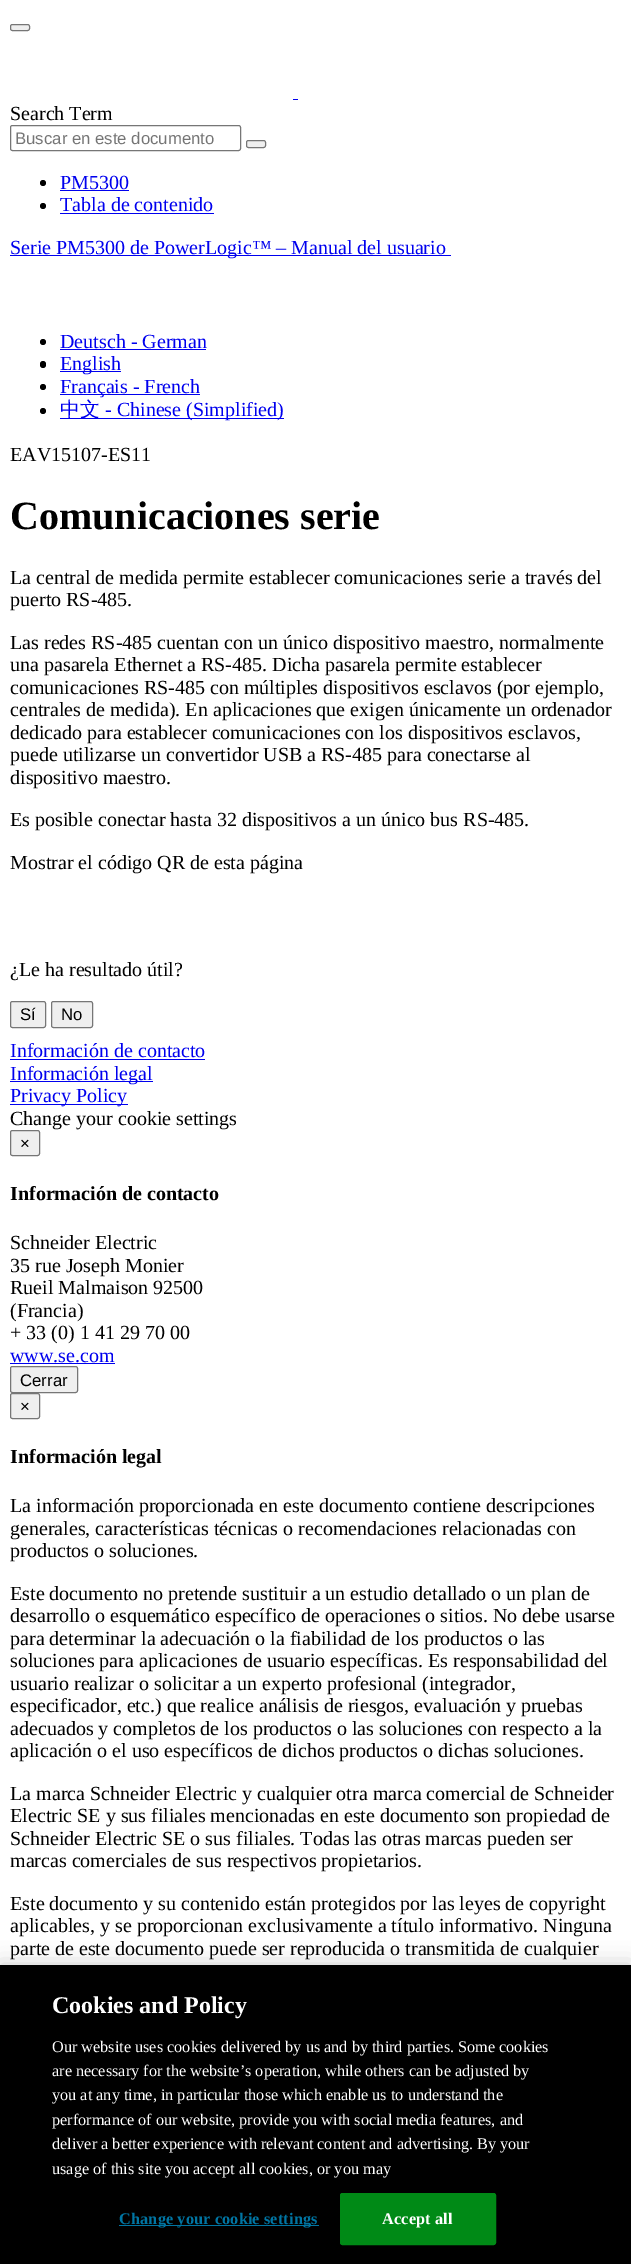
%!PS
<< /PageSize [631 2264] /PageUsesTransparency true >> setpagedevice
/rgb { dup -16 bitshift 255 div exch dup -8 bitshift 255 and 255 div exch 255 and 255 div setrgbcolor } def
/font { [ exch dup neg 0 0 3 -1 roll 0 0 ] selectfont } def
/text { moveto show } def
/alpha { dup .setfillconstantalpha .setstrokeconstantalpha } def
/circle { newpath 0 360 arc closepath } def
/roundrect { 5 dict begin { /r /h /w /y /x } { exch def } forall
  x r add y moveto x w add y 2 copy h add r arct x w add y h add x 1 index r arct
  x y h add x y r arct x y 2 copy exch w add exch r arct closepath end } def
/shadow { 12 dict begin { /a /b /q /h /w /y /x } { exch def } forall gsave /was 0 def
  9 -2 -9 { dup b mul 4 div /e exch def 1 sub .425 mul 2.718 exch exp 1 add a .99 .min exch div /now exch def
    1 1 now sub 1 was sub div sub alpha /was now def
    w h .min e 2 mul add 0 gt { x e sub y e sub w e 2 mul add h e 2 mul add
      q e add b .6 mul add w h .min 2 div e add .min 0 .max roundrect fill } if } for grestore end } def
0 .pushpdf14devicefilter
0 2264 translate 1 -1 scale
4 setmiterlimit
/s1 { /LiberationSerif-Regular 20 font 16#000000 rgb } def
/s2 { /LiberationSans-Regular 16.75 font 16#757575 rgb } def
/s3 { /LiberationSerif-Regular 20 font 16#0000EE rgb } def
/s4 { /WenQuanYiZenHei-Medium 20 font 16#0000EE rgb } def
/s5 { /LiberationSerif-Bold 40 font 16#000000 rgb } def
/s6 { /LiberationSans-Regular 16.75 font 16#000000 rgb } def
/s7 { /LiberationSerif-Bold 20 font 16#000000 rgb } def
/s8 { /LiberationSerif-Bold 24 font 16#FFFFFF rgb } def
/s9 { /LiberationSerif-Regular 16.25 font 16#FFFFFF rgb } def
16#FFFFFF rgb
0 0 631 2264 rectfill
16#EFEFEF rgb
10.5 24.5 19 6 2 roundrect gsave fill grestore
16#767676 rgb
stroke
16#0000EE rgb
293 99 5 1 rectfill
s1
(Search Term) 10 120 text
16#767676 rgb
10.5 125.5 230 25 2 roundrect stroke
s2
(Buscar en este documento) 15 144 text
16#EFEFEF rgb
246.5 140.5 19 7 2 roundrect gsave fill grestore
16#767676 rgb
stroke
16#000000 rgb
43 183 3 circle fill
s3
(PM5300) 60 189 text
60 190 69 1 rectfill
16#000000 rgb
43 206 3 circle fill
s3
(Tabla de contenido) 60 211 text
60 213 154 1 rectfill
10 255 441 1 rectfill
(Serie PM5300 de PowerLogic™ – Manual del usuario) 10 254 text
16#000000 rgb
43 342 3 circle fill
s3
(Deutsch - German) 60 348 text
60 349 146 1 rectfill
16#000000 rgb
40 361 6 7 3 roundrect fill
16#0000EE rgb
60 371 61 1 rectfill
(English) 60 370 text
16#000000 rgb
43 387 3 circle fill
16#0000EE rgb
60 394 140 1 rectfill
(Français - French) 60 393 text
16#000000 rgb
43 411 3 circle fill
16#0000EE rgb
60 418 224 1 rectfill
s4
(中文) 60 416 text
s3
(- Chinese \(Simplified\)) 105 416 text
s1
(EAV15107-ES11) 10 461 text
s5
(Comunicaciones serie) 10 529 text
s1
(La central de medida permite establecer comunicaciones serie a través del) 10 584 text
(puerto RS-485.) 10 606 text
(Las redes RS-485 cuentan con un único dispositivo maestro, normalmente) 10 649 text
(una pasarela Ethernet a RS-485. Dicha pasarela permite establecer) 10 671 text
(comunicaciones RS-485 con múltiples dispositivos esclavos \(por ejemplo,) 10 694 text
(centrales de medida\). En aplicaciones que exigen únicamente un ordenador) 10 716 text
(dedicado para establecer comunicaciones con los dispositivos esclavos,) 10 739 text
(puede utilizarse un convertidor USB a RS-485 para conectarse al) 10 761 text
(dispositivo maestro.) 10 784 text
(Es posible conectar hasta 32 dispositivos a un único bus RS-485.) 10 826 text
(Mostrar el código QR de esta página) 10 869 text
(¿Le ha resultado útil?) 10 976 text
16#EFEFEF rgb
10.5 1001.5 35 26 2 roundrect gsave fill grestore
16#767676 rgb
stroke
s6
(Sí) 20 1020 text
16#EFEFEF rgb
51.5 1001.5 41 26 2 roundrect gsave fill grestore
16#767676 rgb
stroke
s6
(No) 61 1020 text
s3
(Información de contacto) 10 1057 text
10 1059 195 1 rectfill
10 1081 143 1 rectfill
(Información legal) 10 1080 text
10 1104 118 1 rectfill
(Privacy Policy) 10 1102 text
s1
(Change your cookie settings) 10 1125 text
16#EFEFEF rgb
10.5 1130.5 29 25 2 roundrect gsave fill grestore
16#767676 rgb
stroke
s6
(×) 20 1149 text
s7
(Información de contacto) 10 1200 text
s1
(Schneider Electric) 10 1249 text
(35 rue Joseph Monier) 10 1272 text
(Rueil Malmaison 92500) 10 1294 text
(\(Francia\)) 10 1317 text
(+ 33 \(0\) 1 41 29 70 00) 10 1339 text
s3
(www.se.com) 10 1362 text
10 1363 105 1 rectfill
16#EFEFEF rgb
10.5 1366.5 67 26 2 roundrect gsave fill grestore
16#767676 rgb
stroke
s6
(Cerrar) 20 1386 text
16#EFEFEF rgb
10.5 1393.5 29 25 2 roundrect gsave fill grestore
16#767676 rgb
stroke
s6
(×) 20 1412 text
s7
(Información legal) 10 1463 text
s1
(La información proporcionada en este documento contiene descripciones) 10 1512 text
(generales, características técnicas o recomendaciones relacionadas con) 10 1535 text
(productos o soluciones.) 10 1557 text
(Este documento no pretende sustituir a un estudio detallado o un plan de) 10 1600 text
(desarrollo o esquemático específico de operaciones o sitios. No debe usarse) 10 1622 text
(para determinar la adecuación o la fiabilidad de los productos o las) 10 1645 text
(soluciones para aplicaciones de usuario específicas. Es responsabilidad del) 10 1667 text
(usuario realizar o solicitar a un experto profesional \(integrador,) 10 1690 text
(especificador, etc.\) que realice análisis de riesgos, evaluación y pruebas) 10 1712 text
(adecuados y completos de los productos o las soluciones con respecto a la) 10 1735 text
(aplicación o el uso específicos de dichos productos o dichas soluciones.) 10 1757 text
(La marca Schneider Electric y cualquier otra marca comercial de Schneider) 10 1800 text
(Electric SE y sus filiales mencionadas en este documento son propiedad de) 10 1822 text
(Schneider Electric SE o sus filiales. Todas las otras marcas pueden ser) 10 1845 text
(marcas comerciales de sus respectivos propietarios.) 10 1867 text
(Este documento y su contenido están protegidos por las leyes de copyright) 10 1910 text
(aplicables, y se proporcionan exclusivamente a título informativo. Ninguna) 10 1932 text
(parte de este documento puede ser reproducida o transmitida de cualquier) 10 1955 text
0 1965 631 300 0 11 0.2 shadow
0 1965 631 299 rectfill
s8
(Cookies and Policy) 52 2013 text
s9
(Our website uses cookies delivered by us and by third parties. Some cookies) 52 2052 text
(are necessary for the website’s operation, while others can be adjusted by) 52 2076 text
(you at any time, in particular those which enable us to understand the) 52 2100 text
(performance of our website, provide you with social media features, and) 52 2125 text
(deliver a better experience with relevant content and advertising. By your) 52 2149 text
(usage of this site you accept all cookies, or you may) 52 2174 text
16#0075A3 rgb
119 2225 200 1 rectfill
/LiberationSerif-Bold 16.25 font
119 2224 moveto 0.15 0 (Change your cookie settings) ashow
16#008A16 rgb
340.5 2193.5 155 51 2 roundrect gsave fill grestore
stroke
16#FFFFFF rgb
382 2224 moveto 0.15 0 (Accept all) ashow
.poppdf14devicefilter showpage
